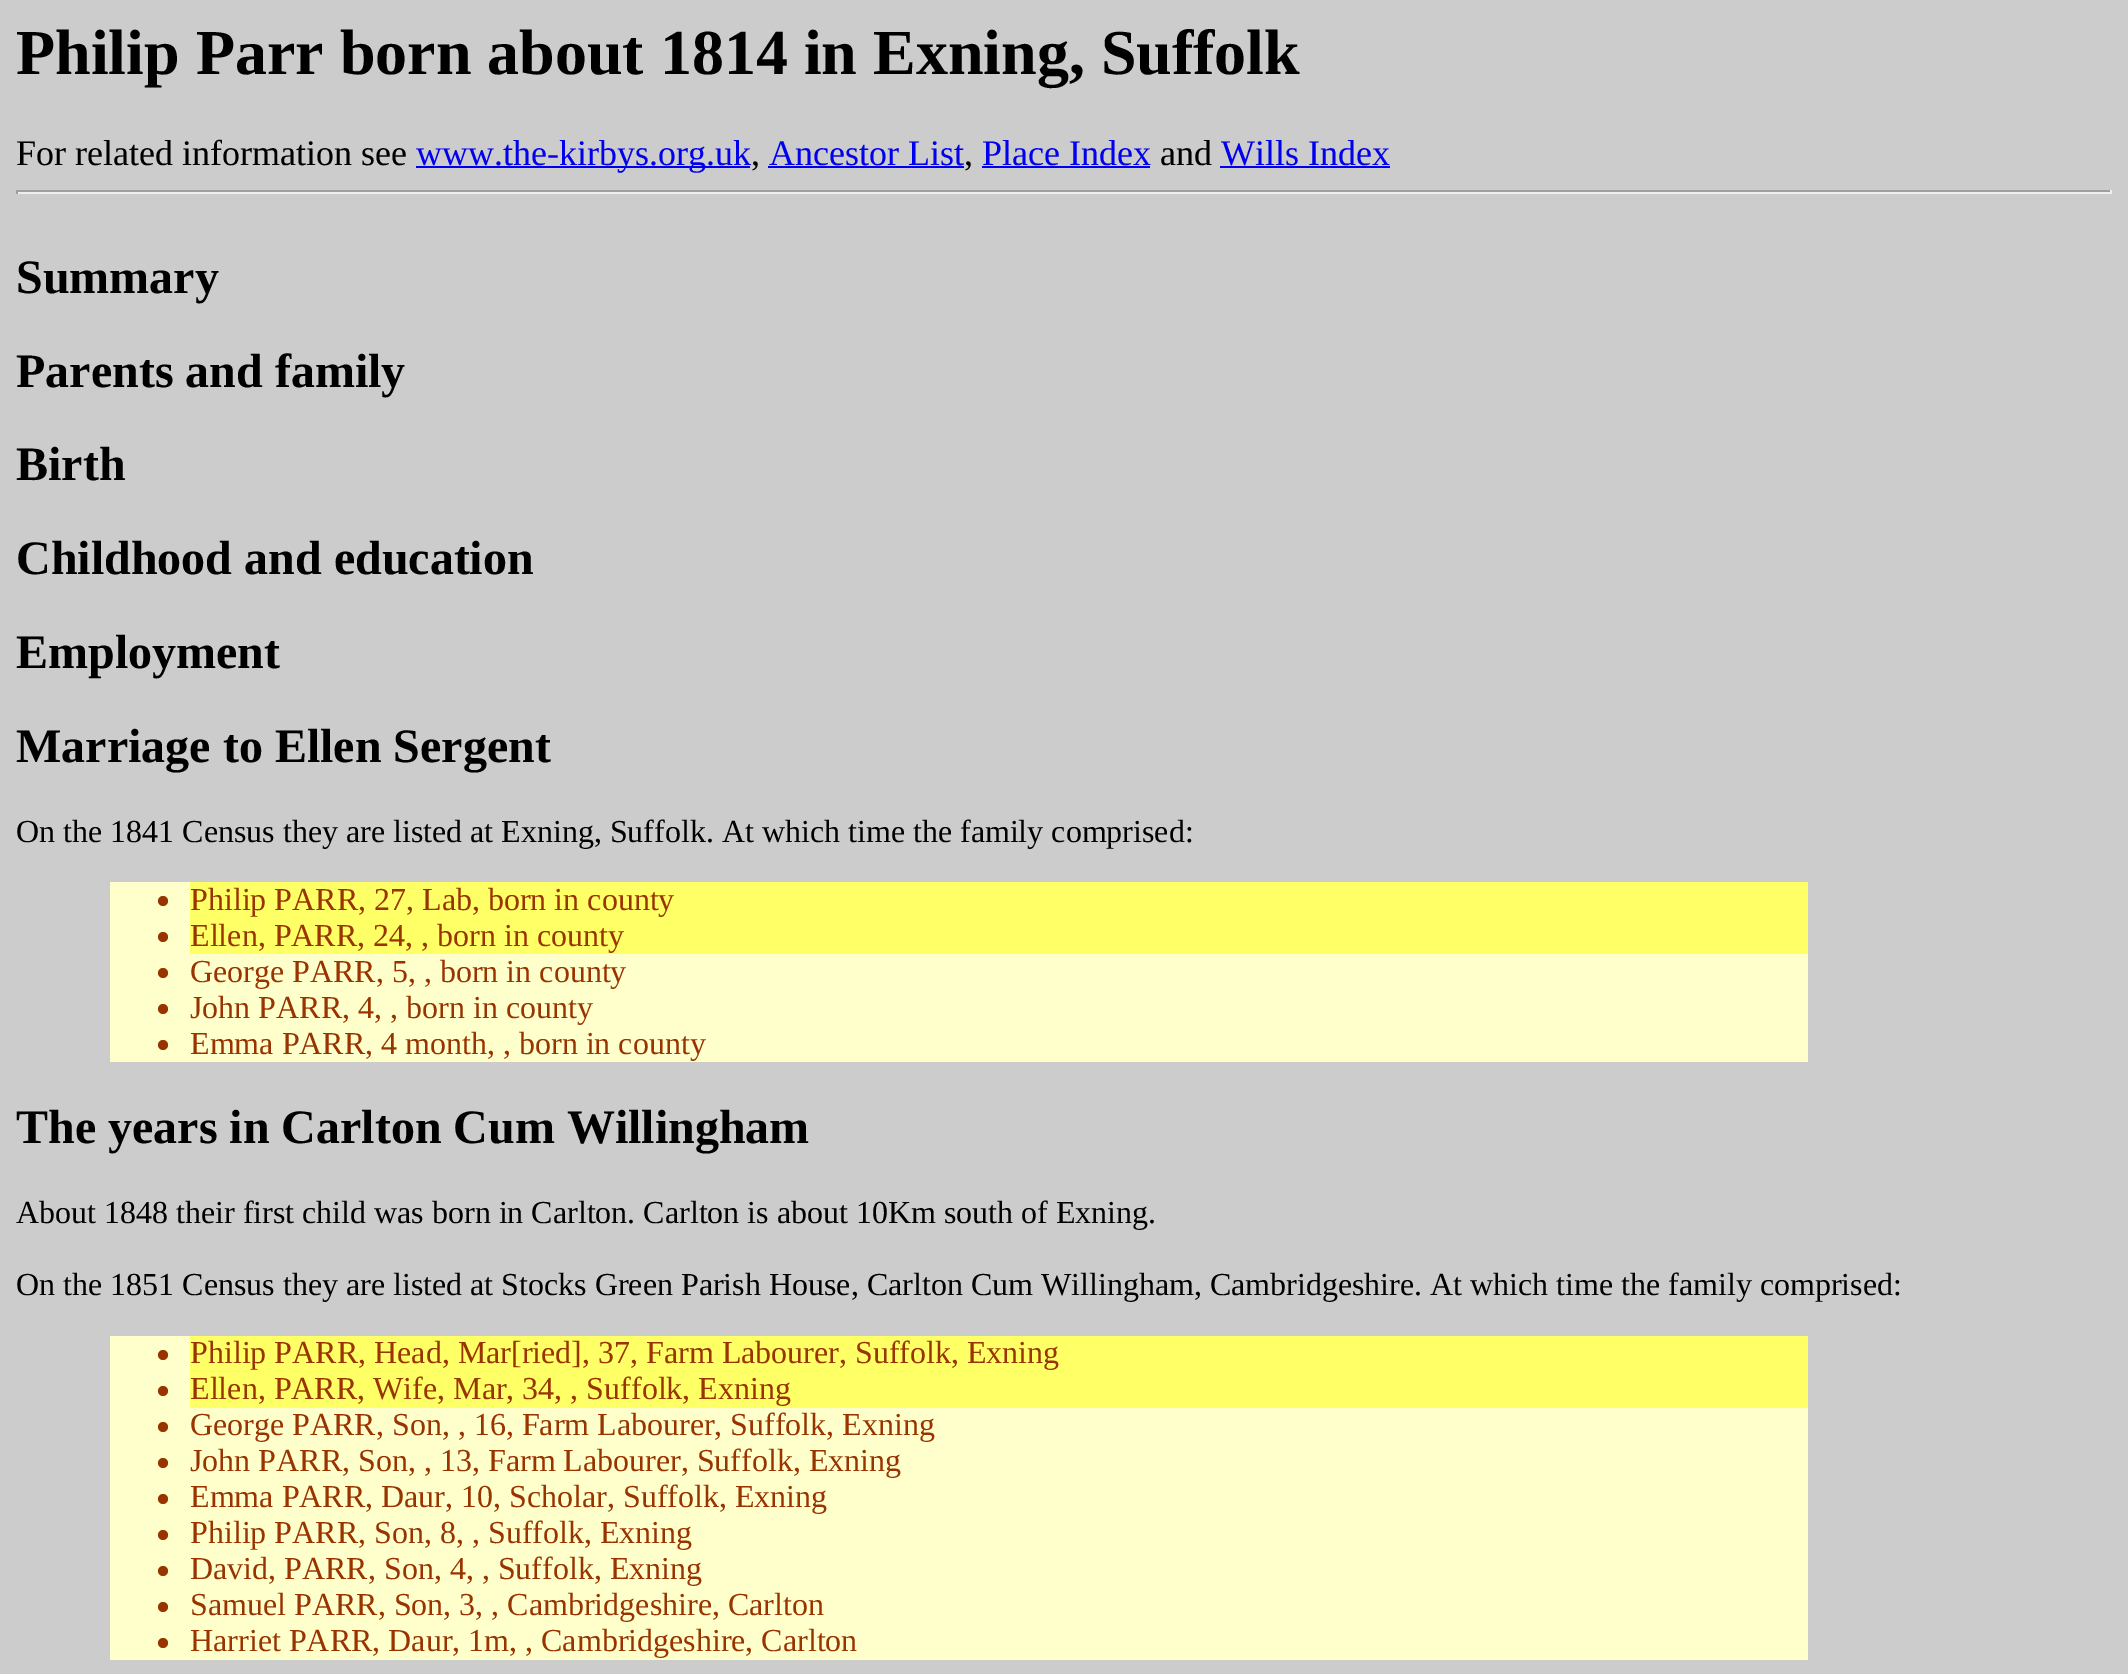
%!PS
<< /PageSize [2128 1674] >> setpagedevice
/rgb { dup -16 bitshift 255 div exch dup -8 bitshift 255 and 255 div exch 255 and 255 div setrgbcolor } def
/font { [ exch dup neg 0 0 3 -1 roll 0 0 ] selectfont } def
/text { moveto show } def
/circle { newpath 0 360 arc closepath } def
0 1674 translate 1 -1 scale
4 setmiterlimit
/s1 { /LiberationSerif-Bold 64 font 16#000000 rgb } def
/s2 { /LiberationSerif-Regular 36 font 16#000000 rgb } def
/s3 { /LiberationSerif-Regular 36 font 16#0000EE rgb } def
/s4 { /LiberationSerif-Bold 48 font 16#000000 rgb } def
/s5 { /LiberationSerif-Regular 32 font 16#000000 rgb } def
/s6 { /LiberationSerif-Regular 32 font 16#993300 rgb } def
16#CCCCCC rgb
0 0 2128 1674 rectfill
s1
(Philip Parr born about 1814 in Exning, Suffolk) 16 74 text
s2
(For related information see) 16 165 text
16#0000EE rgb
416 166 334 2 rectfill
(www.the-kirbys.org.uk) 416 165 text
s2
(,) 751 165 text
s3
(Ancestor List) 769 165 text
s2
(,) 964 165 text
16#0000EE rgb
768 166 196 2 rectfill
982 166 168 2 rectfill
(Place Index) 982 165 text
s2
(and) 1160 165 text
s3
(Wills Index) 1221 165 text
1220 166 170 2 rectfill
16#9F9F9F rgb
16 190 2096 2 rectfill
16#EEEEEE rgb
2110 190 2 4 rectfill
16 192 2096 2 rectfill
16#9F9F9F rgb
16 190 2 4 rectfill
s4
(Summary) 16 293 text
(Parents and family) 16 387 text
(Birth) 16 480 text
(Childhood and education) 16 574 text
(Employment) 16 668 text
(Marriage to Ellen Sergent) 16 762 text
s5
(On the 1841 Census they are listed at Exning, Suffolk. At which time the family comprised:) 16 842 text
16#FFFFCC rgb
110 882 1698 180 rectfill
16#FFFF66 rgb
190 882 1618 72 rectfill
16#993300 rgb
163 901 5 circle fill
(Philip PARR, 27, Lab, born in county) 190 910 text
163 937 5 circle fill
(Ellen, PARR, 24, , born in county) 190 946 text
163 973 5 circle fill
(George PARR, 5, , born in county) 190 982 text
163 1009 5 circle fill
(John PARR, 4, , born in county) 190 1018 text
163 1045 5 circle fill
(Emma PARR, 4 month, , born in county) 190 1054 text
s4
(The years in Carlton Cum Willingham) 16 1143 text
s5
(About 1848 their first child was born in Carlton. Carlton is about 10Km south of Exning.) 16 1223 text
(On the 1851 Census they are listed at Stocks Green Parish House, Carlton Cum Willingham, Cambridgeshire. At which time the family comprised:) 16 1295 text
16#FFFFCC rgb
110 1336 1698 324 rectfill
16#FFFF66 rgb
190 1336 1618 72 rectfill
16#993300 rgb
163 1355 5 circle fill
(Philip PARR, Head, Mar[ried], 37, Farm Labourer, Suffolk, Exning) 190 1363 text
163 1391 5 circle fill
(Ellen, PARR, Wife, Mar, 34, , Suffolk, Exning) 190 1399 text
163 1427 5 circle fill
(George PARR, Son, , 16, Farm Labourer, Suffolk, Exning) 190 1435 text
163 1463 5 circle fill
(John PARR, Son, , 13, Farm Labourer, Suffolk, Exning) 190 1471 text
163 1499 5 circle fill
(Emma PARR, Daur, 10, Scholar, Suffolk, Exning) 190 1507 text
163 1535 5 circle fill
(Philip PARR, Son, 8, , Suffolk, Exning) 190 1543 text
163 1571 5 circle fill
(David, PARR, Son, 4, , Suffolk, Exning) 190 1579 text
163 1607 5 circle fill
(Samuel PARR, Son, 3, , Cambridgeshire, Carlton) 190 1615 text
163 1643 5 circle fill
(Harriet PARR, Daur, 1m, , Cambridgeshire, Carlton) 190 1651 text
showpage
